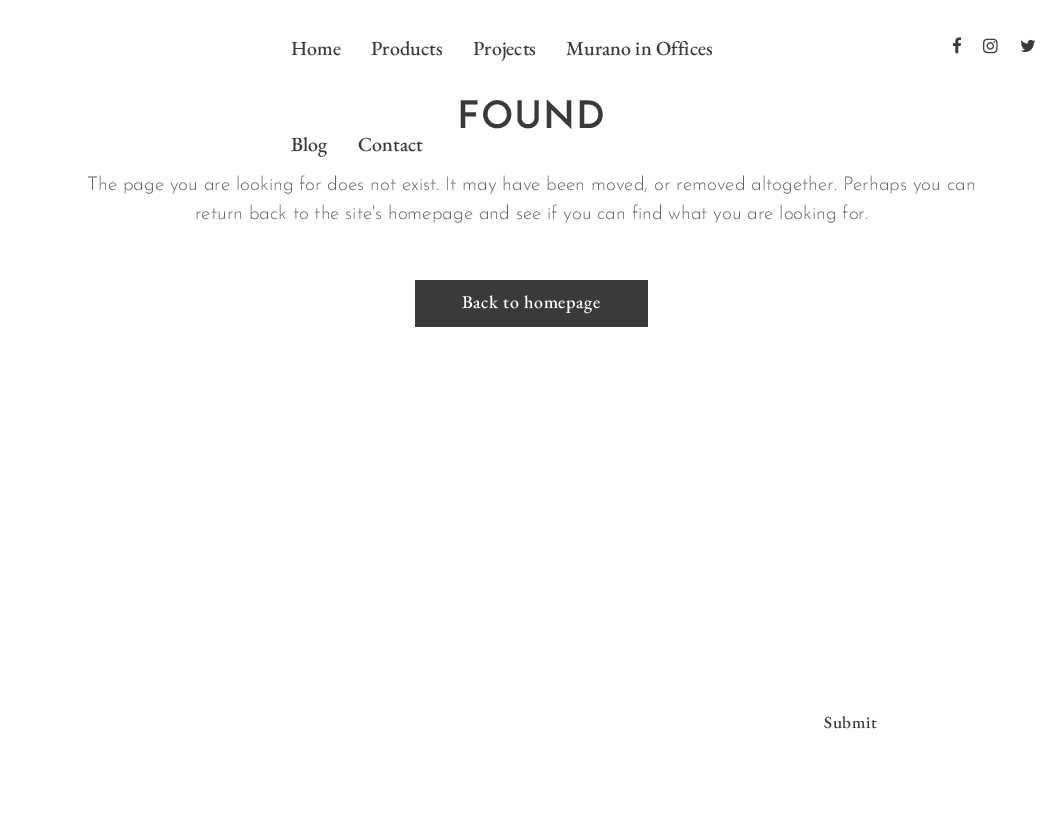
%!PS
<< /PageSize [1063 818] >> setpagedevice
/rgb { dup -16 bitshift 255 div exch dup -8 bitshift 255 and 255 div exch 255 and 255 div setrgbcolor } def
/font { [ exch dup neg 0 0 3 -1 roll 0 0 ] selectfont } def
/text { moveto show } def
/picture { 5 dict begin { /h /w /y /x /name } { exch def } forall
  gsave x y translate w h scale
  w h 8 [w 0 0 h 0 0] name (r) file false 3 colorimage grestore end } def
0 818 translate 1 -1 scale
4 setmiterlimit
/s1 { /EBGaramond-Medium 20 font 16#3A3A3A rgb } def
/s2 { /JosefinSans-Light 19 font 16#656565 rgb } def
16#FFFFFF rgb
0 0 1063 818 rectfill
s1
(Home) 291 55 text
(Products) 371 55 text
(Projects) 473 55 text
(Murano in Offices) 566 55 text
(Blog) 291 151 text
(Contact) 358 151 text
(pic1.raw) 952 37 10 17 picture
(pic2.raw) 983 38 15 16 picture
(pic3.raw) 1020 39 16 13 picture
/JosefinSans-SemiBold 38 font
457 128 moveto 1 0 (FOUND) ashow
s2
(The page you are looking for does not exist. It may have been moved, or removed altogether. Perhaps you can) 87 190 text
(return back to the site's homepage and see if you can find what you are looking for.) 195 219 text
16#3A3A3A rgb
415 280 233 47 rectfill
/EBGaramond-Medium 18 font
16#FFFFFF rgb
462 308 moveto 0.6 0 (Back to homepage) ashow
/EBGaramond-Medium 17 font
16#3A3A3A rgb
824 728 moveto 0.6 0 (Submit) ashow
showpage
